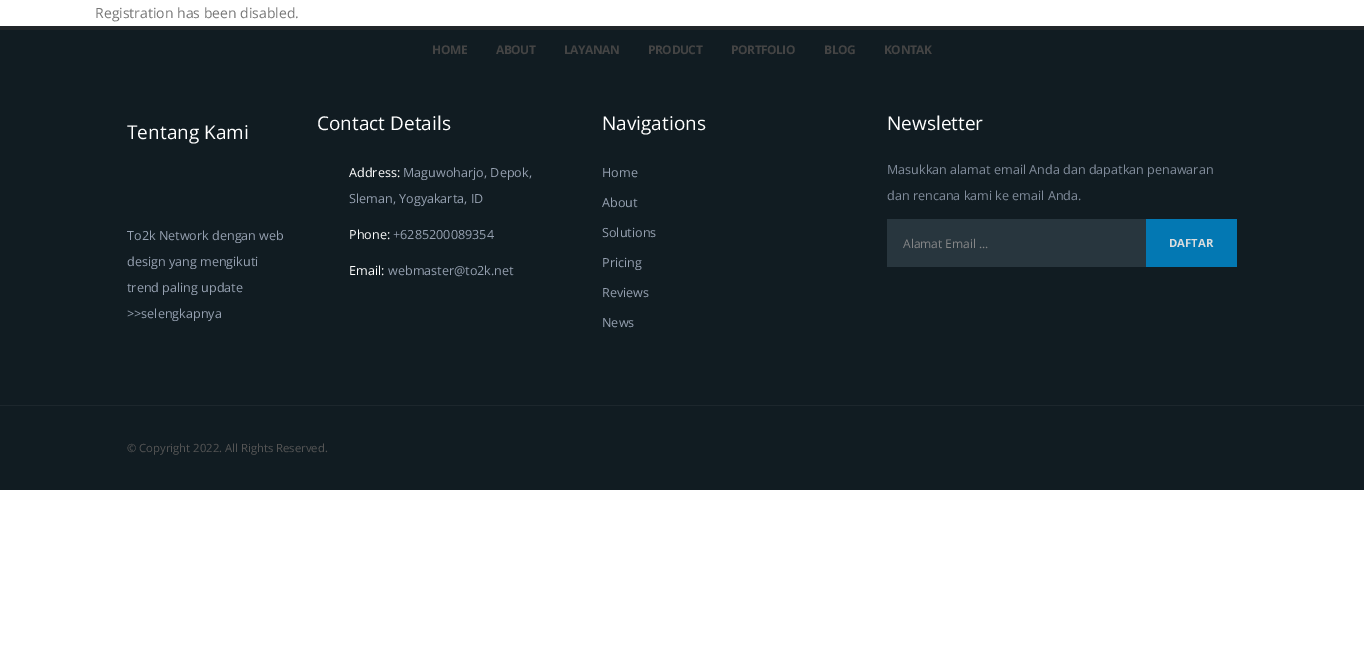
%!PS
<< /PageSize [1364 651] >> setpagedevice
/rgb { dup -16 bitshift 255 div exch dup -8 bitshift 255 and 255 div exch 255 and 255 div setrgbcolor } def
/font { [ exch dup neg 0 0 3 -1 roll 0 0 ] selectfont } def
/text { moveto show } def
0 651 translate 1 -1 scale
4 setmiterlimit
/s1 { /OpenSans-Regular 14 font 16#777777 rgb } def
/s2 { /OpenSans-Regular 19 font 16#FFFFFF rgb } def
/s3 { /OpenSans-Regular 12.6 font 16#96A1B1 rgb } def
/s4 { /OpenSans-Regular 12.6 font 16#FFFFFF rgb } def
/s5 { /OpenSans-Regular 12.6 font 16#828D9C rgb } def
/s6 { /OpenSans-Regular 12 font 16#858687 rgb } def
/s7 { /OpenSans-Bold 11.3 font 16#DBDDDE rgb } def
/s8 { /OpenSans-Regular 11.3 font 16#555555 rgb } def
16#FFFFFF rgb
0 0 1364 651 rectfill
s1
(Registration has been disabled.) 95 18 text
16#111C22 rgb
0 30 1364 460 rectfill
/OpenSans-Bold 12 font
16#444444 rgb
432 54 moveto -0.5 0 (HOME) ashow
496 54 moveto -0.5 0 (ABOUT) ashow
564 54 moveto -0.5 0 (LAYANAN) ashow
648 54 moveto -0.5 0 (PRODUCT) ashow
731 54 moveto -0.5 0 (PORTFOLIO) ashow
824 54 moveto -0.5 0 (BLOG) ashow
884 54 moveto -0.5 0 (KONTAK) ashow
16#212529 rgb
0 26 1364 4 rectfill
s2
(Tentang Kami) 127 139 text
s3
(To2k Network dengan web) 127 240 text
(design yang mengikuti) 127 266 text
(trend paling update) 127 292 text
(>>selengkapnya) 127 318 text
s2
(Contact Details) 317 130 text
s4
(Address:) 349 177 text
s3
(Maguwoharjo, Depok,) 403 177 text
(Sleman, Yogyakarta, ID) 349 203 text
s4
(Phone:) 349 239 text
s3
(+6285200089354) 393 239 text
s4
(Email:) 349 275 text
s3
(webmaster@to2k.net) 388 275 text
s2
(Navigations) 602 130 text
s3
(Home) 602 177 text
(About) 602 207 text
(Solutions) 602 237 text
(Pricing) 602 267 text
(Reviews) 602 297 text
(News) 602 327 text
s2
(Newsletter) 887 130 text
s5
(Masukkan alamat email Anda dan dapatkan penawaran) 887 174 text
(dan rencana kami ke email Anda.) 887 200 text
16#28363E rgb
887 219 259 48 rectfill
s6
(Alamat Email ...) 903 248 text
16#0378B3 rgb
1146 219 91 48 rectfill
s7
(DAFTAR) 1169 247 text
16#1D272D rgb
0 405 1364 1 rectfill
s8
(© Copyright 2022. All Rights Reserved.) 127 452 text
showpage
